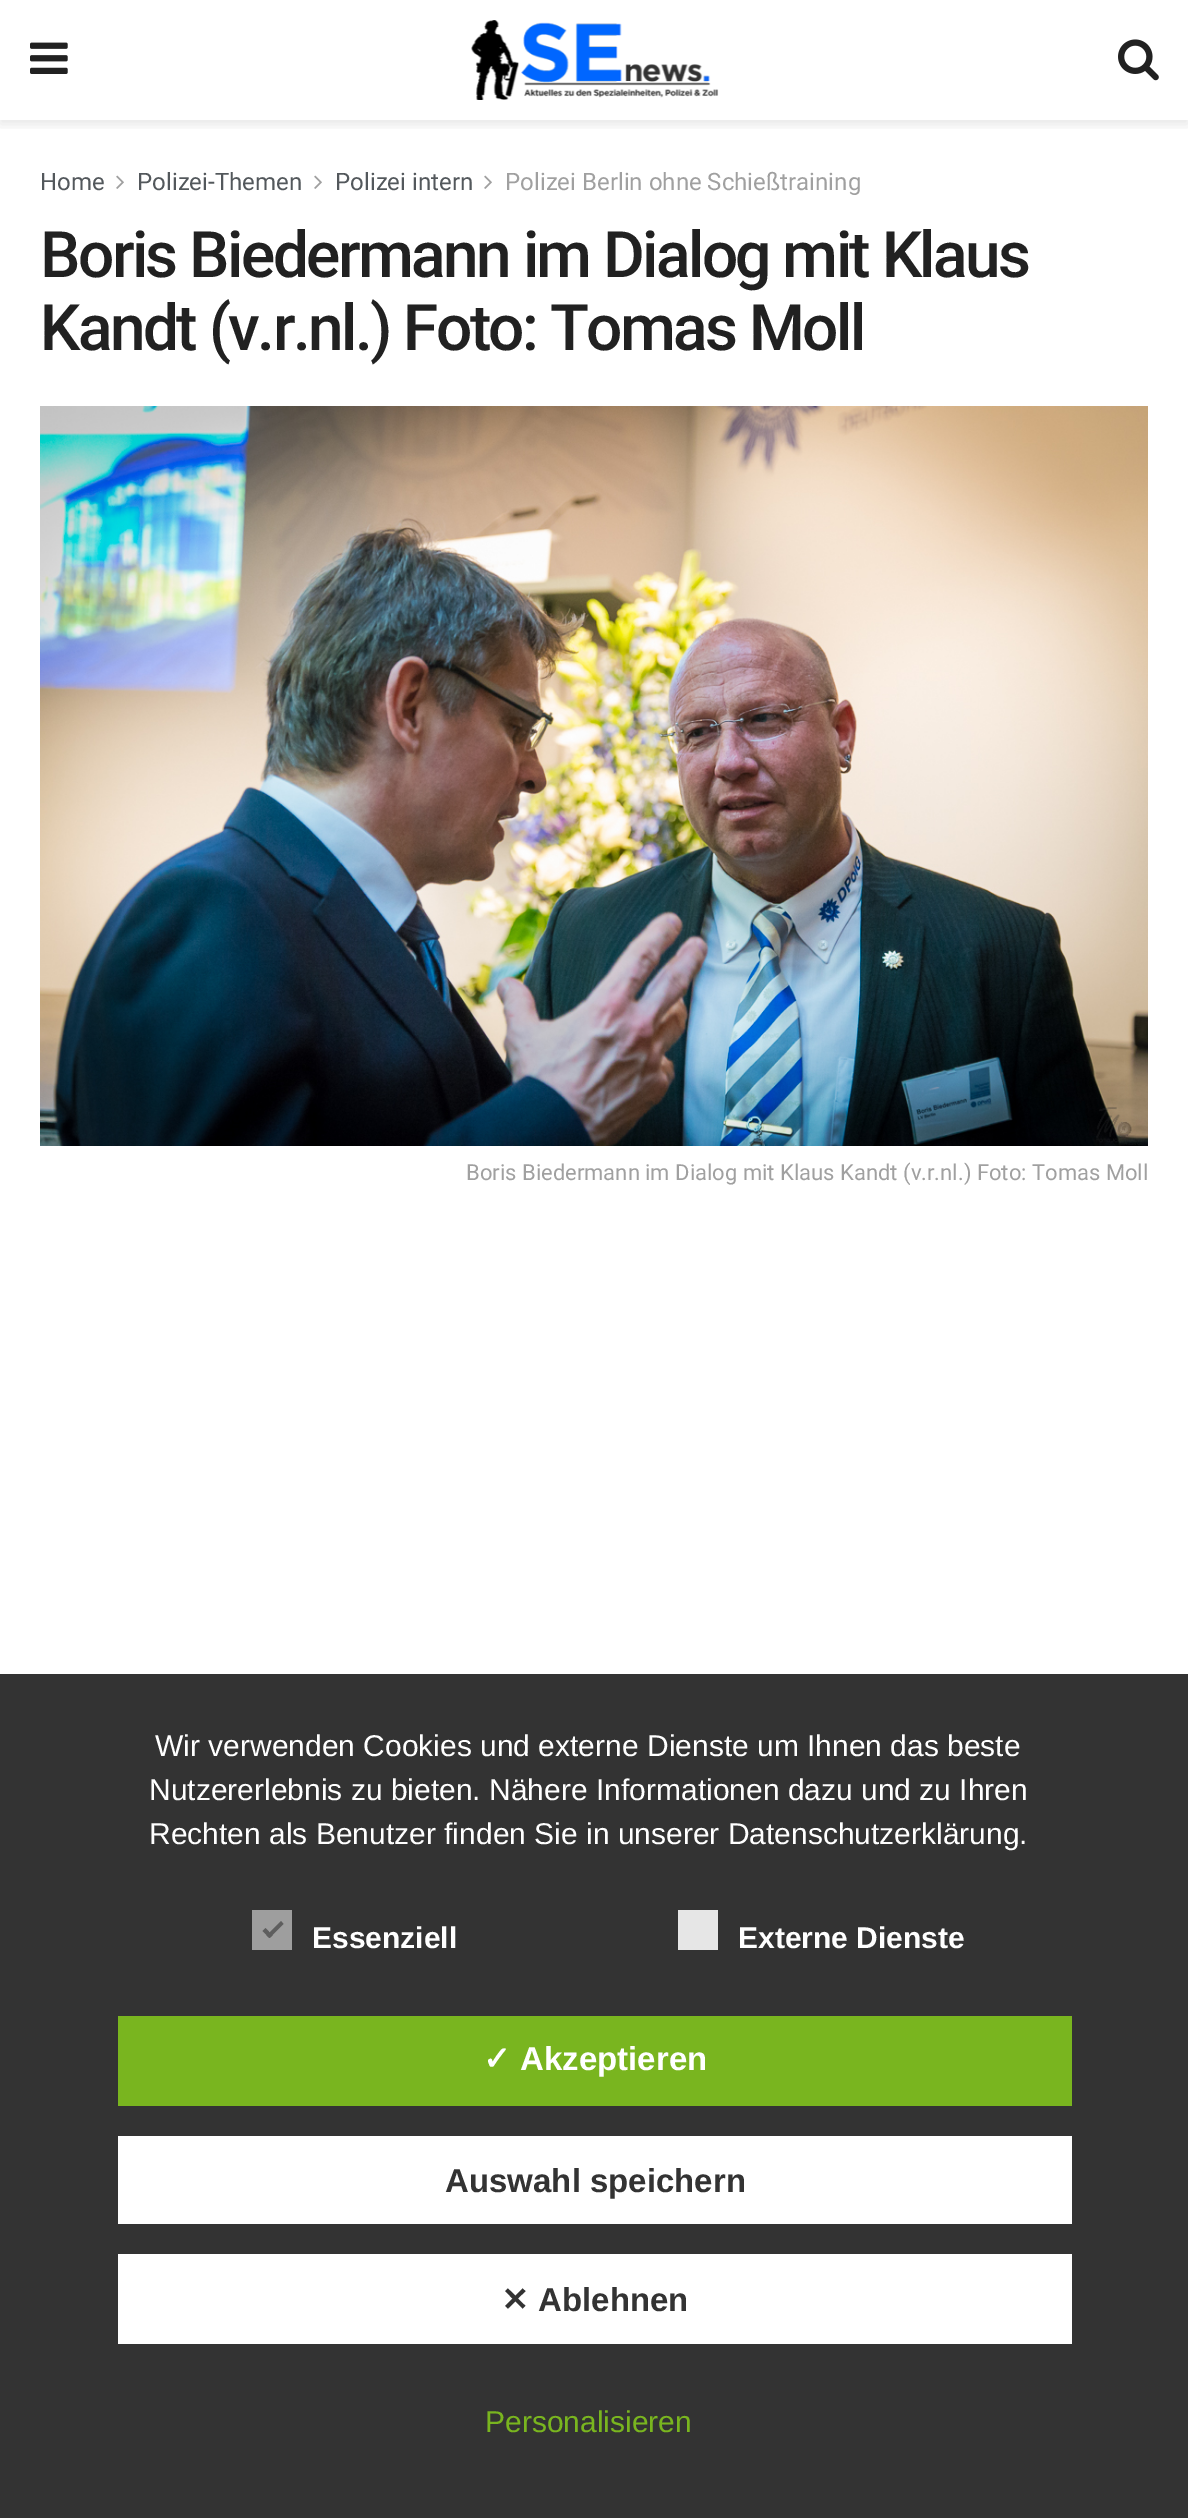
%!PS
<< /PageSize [1188 2518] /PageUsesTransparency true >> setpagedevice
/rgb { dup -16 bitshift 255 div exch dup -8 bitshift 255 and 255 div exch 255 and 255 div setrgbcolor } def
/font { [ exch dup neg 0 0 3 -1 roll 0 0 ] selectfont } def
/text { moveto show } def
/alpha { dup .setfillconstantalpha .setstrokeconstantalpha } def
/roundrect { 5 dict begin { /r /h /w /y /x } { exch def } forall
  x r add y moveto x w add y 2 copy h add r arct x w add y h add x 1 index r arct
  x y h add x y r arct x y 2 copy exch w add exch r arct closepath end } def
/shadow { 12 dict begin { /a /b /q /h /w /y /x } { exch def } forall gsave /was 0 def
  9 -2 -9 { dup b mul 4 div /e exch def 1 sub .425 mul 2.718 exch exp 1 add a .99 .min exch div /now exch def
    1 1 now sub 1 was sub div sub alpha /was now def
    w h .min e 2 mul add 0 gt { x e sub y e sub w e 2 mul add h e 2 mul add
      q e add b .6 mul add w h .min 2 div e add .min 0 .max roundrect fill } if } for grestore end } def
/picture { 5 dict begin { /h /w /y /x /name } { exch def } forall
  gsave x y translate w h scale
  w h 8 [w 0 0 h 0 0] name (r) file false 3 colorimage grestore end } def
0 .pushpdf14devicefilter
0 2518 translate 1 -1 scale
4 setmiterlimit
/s1 { /Roboto-Regular 24 font 16#53585C rgb } def
/s2 { /Roboto-Regular 24 font 16#A0A0A0 rgb } def
/s3 { /Roboto-Regular 22 font 16#A0A0A0 rgb } def
/s4 { /LiberationSans-Regular 30 font 16#FFFFFF rgb } def
/s5 { /LiberationSans-Bold 30 font 16#FFFFFF rgb } def
/s6 { /DejaVuSans-Bold 33 font 16#FFFFFF rgb } def
/s7 { /LiberationSans-Bold 33 font 16#FFFFFF rgb } def
/s8 { /LiberationSans-Bold 33 font 16#333333 rgb } def
/s9 { /DejaVuSans-Bold 33 font 16#333333 rgb } def
/s10 { /LiberationSans-Regular 30 font 16#79B51F rgb } def
16#FFFFFF rgb
0 0 1188 2518 rectfill
gsave
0 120 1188 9 rectclip
16#000000 rgb
0 4 1188 120 0 6 0.1 shadow
grestore
(pic1.raw) 30 42 38 32 picture
(pic2.raw) 471 20 248 80 picture
(pic3.raw) 1118 39 41 42 picture
s1
(Home) 40 190 text
(pic4.raw) 116 175 8 14 picture
(Polizei-Themen) 137 190 text
(pic4.raw) 314 175 8 14 picture
(Polizei intern) 335 190 text
(pic4.raw) 484 175 8 14 picture
s2
(Polizei Berlin ohne Schießtraining) 505 190 text
/Roboto-Medium 64 font
16#212121 rgb
40 277 moveto -2.55 0 (Boris Biedermann im Dialog mit Klaus) ashow
40 350 moveto -2.55 0 (Kandt \(v.r.nl.\) Foto: Tomas Moll) ashow
(pic5.raw) 40 406 1108 740 picture
s3
(Boris Biedermann im Dialog mit Klaus Kandt \(v.r.nl.\) Foto: Tomas Moll) 466 1180 text
16#333333 rgb
0 1674 1188 844 rectfill
s4
(Wir verwenden Cookies und externe Dienste um Ihnen das beste) 155 1756 text
(Nutzererlebnis zu bieten. Nähere Informationen dazu und zu Ihren) 149 1800 text
(Rechten als Benutzer finden Sie in unserer Datenschutzerklärung.) 149 1844 text
16#9E9E9E rgb
252 1910 40 40 rectfill
16#5E5E5E rgb
281 1921 moveto 283.5 1924 lineto 269.5 1938 lineto 266.5 1935.5 lineto closepath fill
265.5 1928 moveto 272.5 1935.5 lineto 269.5 1938 lineto 262.5 1931 lineto closepath fill
s5
(Essenziell) 312 1948 text
16#E6E6E6 rgb
678 1910 40 40 rectfill
s5
(Externe Dienste) 738 1948 text
16#79B51F rgb
118 2016 954 90 rectfill
s6
(✓) 483 2070 text
s7
(Akzeptieren) 520 2070 text
118 2136 954 88 rectfill
s8
(Auswahl speichern) 445 2192 text
16#FFFFFF rgb
118 2254 954 90 rectfill
s9
(✕) 501 2311 text
s8
(Ablehnen) 538 2311 text
s10
(Personalisieren) 485 2432 text
.poppdf14devicefilter showpage
